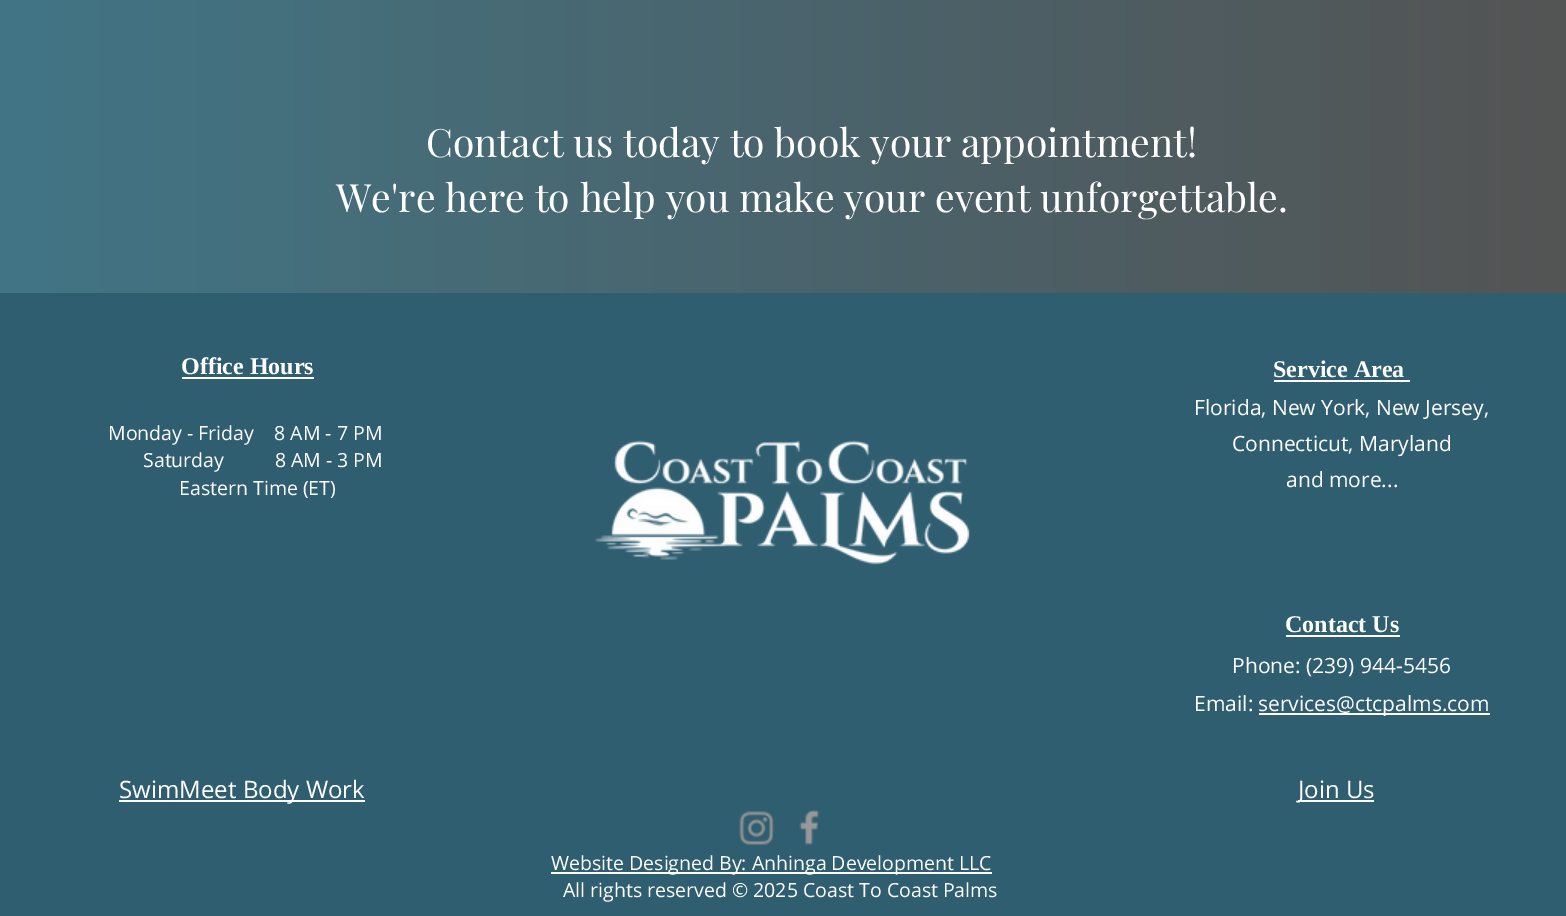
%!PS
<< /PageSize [1566 916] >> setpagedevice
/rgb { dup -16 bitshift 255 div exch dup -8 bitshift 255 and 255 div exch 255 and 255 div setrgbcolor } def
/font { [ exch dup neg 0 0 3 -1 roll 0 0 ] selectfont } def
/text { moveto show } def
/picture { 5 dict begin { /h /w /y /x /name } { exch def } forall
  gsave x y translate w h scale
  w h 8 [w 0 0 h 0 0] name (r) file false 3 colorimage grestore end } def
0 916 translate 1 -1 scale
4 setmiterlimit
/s1 { /PlayfairDisplay-Regular 39 font 16#FFFFFF rgb } def
/s2 { /LiberationSerif-Bold 24 font 16#FFFFFF rgb } def
/s3 { /OpenSans-Regular 19.5 font 16#FFFFFF rgb } def
/s4 { /OpenSans-Regular 21 font 16#FFFFFF rgb } def
/s5 { /OpenSans-Regular 24 font 16#FFFFFF rgb } def
16#FFFFFF rgb
0 0 1566 916 rectfill
gsave 0 0 moveto 1566 0 lineto 1566 293 lineto 0 293 lineto closepath clip newpath
<< /ShadingType 2 /ColorSpace /DeviceRGB /Coords [0 -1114 1566 -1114] /Extend [true true] /Function << /FunctionType 2 /Domain [0 1] /C0 [0.255 0.459 0.525] /C1 [0.329 0.329 0.329] /N 1 >> >> shfill grestore
s1
(Contact us today to book your appointment!) 426 157 text
(We're here to help you make your event unforgettable.) 336 212 text
16#305E71 rgb
0 293 1566 623 rectfill
s2
(Office Hours) 181 374 text
182 377 132 2 rectfill
s3
(Monday - Friday    8 AM - 7 PM) 108 440 text
(Saturday          8 AM - 3 PM) 143 467 text
(Eastern Time \(ET\)) 179 495 text
s2
(Service Area) 1273 377 text
1274 380 136 2 rectfill
s4
(Florida, New York, New Jersey,) 1194 415 text
(Connecticut, Maryland) 1232 451 text
(and more...) 1286 487 text
(pic1.raw) 595 440 375 125 picture
s2
(Contact Us) 1285 632 text
1286 635 114 2 rectfill
s4
(Phone: \(239\) 944-5456) 1232 673 text
(Email:) 1194 711 text
1259 713 231 2 rectfill
(services@ctcpalms.com) 1258 711 text
119 800 246 2 rectfill
s5
(SwimMeet Body Work) 119 798 text
1298 800 76 2 rectfill
(Join Us) 1298 798 text
(pic2.raw) 739 811 35 34 picture
(pic3.raw) 799 810 21 35 picture
551 872 441 2 rectfill
s3
(Website Designed By: Anhinga Development LLC) 551 870 text
(All rights reserved © 2025 Coast To Coast Palms) 563 897 text
showpage
